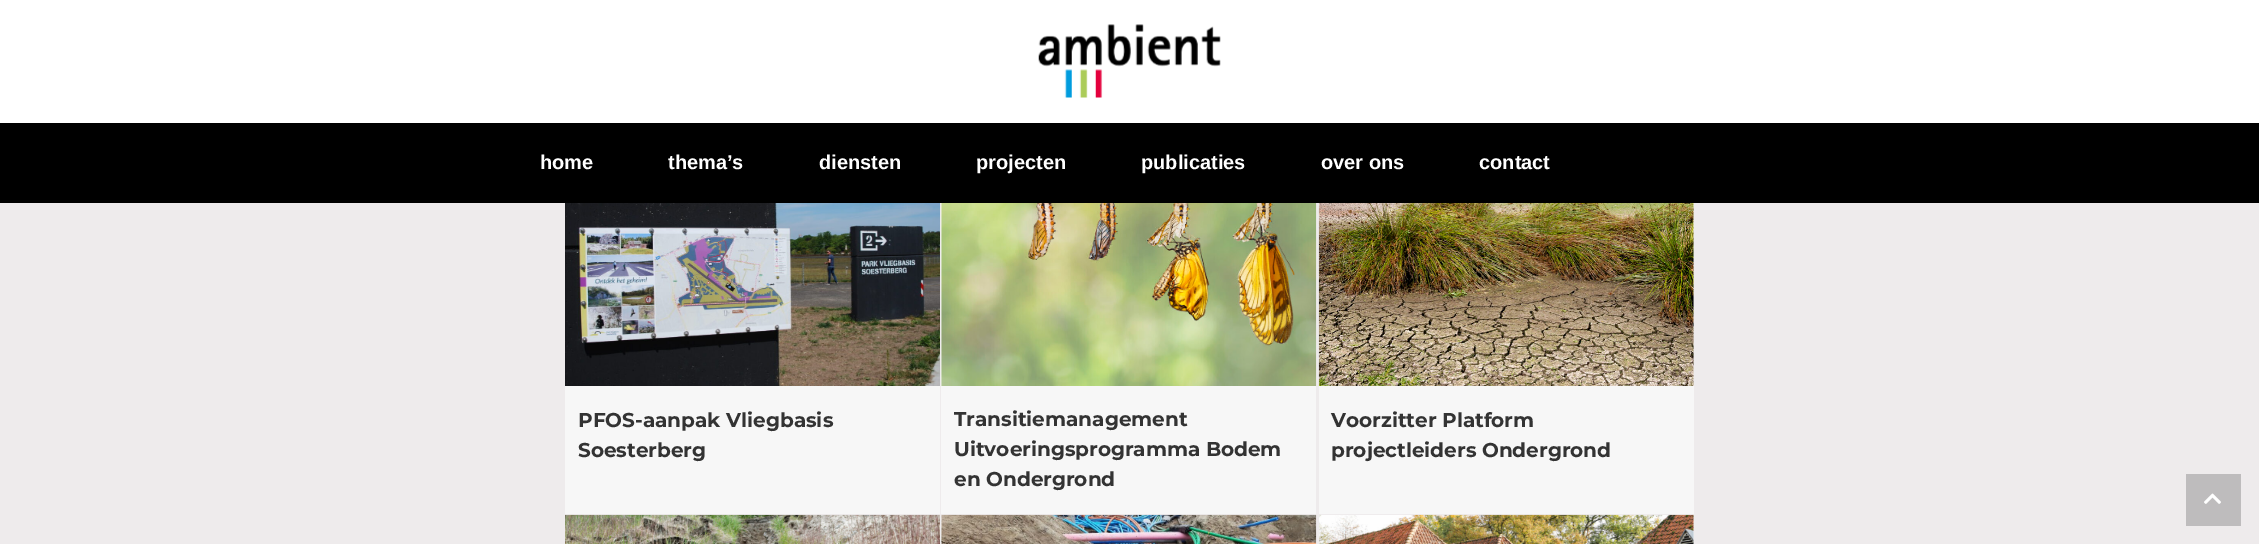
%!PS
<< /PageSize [2259 544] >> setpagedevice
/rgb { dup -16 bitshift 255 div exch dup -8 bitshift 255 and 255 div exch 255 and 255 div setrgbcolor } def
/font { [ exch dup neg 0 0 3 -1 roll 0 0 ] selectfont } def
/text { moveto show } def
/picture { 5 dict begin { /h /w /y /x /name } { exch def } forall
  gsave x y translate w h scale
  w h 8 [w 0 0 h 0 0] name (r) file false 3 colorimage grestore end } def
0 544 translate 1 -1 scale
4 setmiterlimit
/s1 { /LiberationSans-Bold 20 font 16#FFFFFF rgb } def
/s2 { /Montserrat-Thin 20 font 16#333333 rgb } def
16#EEEBEC rgb
0 0 2259 544 rectfill
16#FFFFFF rgb
0 0 2259 123 rectfill
(pic1.raw) 1038 24 183 74 picture
16#000000 rgb
0 123 2259 80 rectfill
s1
(home) 540 169 text
(thema’s) 668 169 text
(diensten) 819 169 text
(projecten) 976 169 text
(publicaties) 1141 169 text
(over ons) 1321 169 text
(contact) 1479 169 text
16#F7F7F7 rgb
565 386 375 128 rectfill
(pic2.raw) 565 203 375 183 picture
s2
(PFOS-aanpak Vliegbasis) 578 427 text
(Soesterberg) 578 457 text
16#F7F7F7 rgb
941 203 375 311 rectfill
(pic3.raw) 941 203 376 183 picture
s2
(Transitiemanagement) 954 426 text
(Uitvoeringsprogramma Bodem) 954 456 text
(en Ondergrond) 954 486 text
16#F7F7F7 rgb
1319 203 375 311 rectfill
(pic4.raw) 1318 203 376 183 picture
s2
(Voorzitter Platform) 1331 427 text
(projectleiders Ondergrond) 1331 457 text
(pic5.raw) 565 514 375 30 picture
16#F7F7F7 rgb
941 515 1 29 rectfill
(pic6.raw) 941 514 376 30 picture
1693 515 1 29 rectfill
(pic7.raw) 1319 514 375 30 picture
16#BEBCBD rgb
2186 474 55 52 rectfill
(pic8.raw) 2204 493 17 11 picture
showpage
